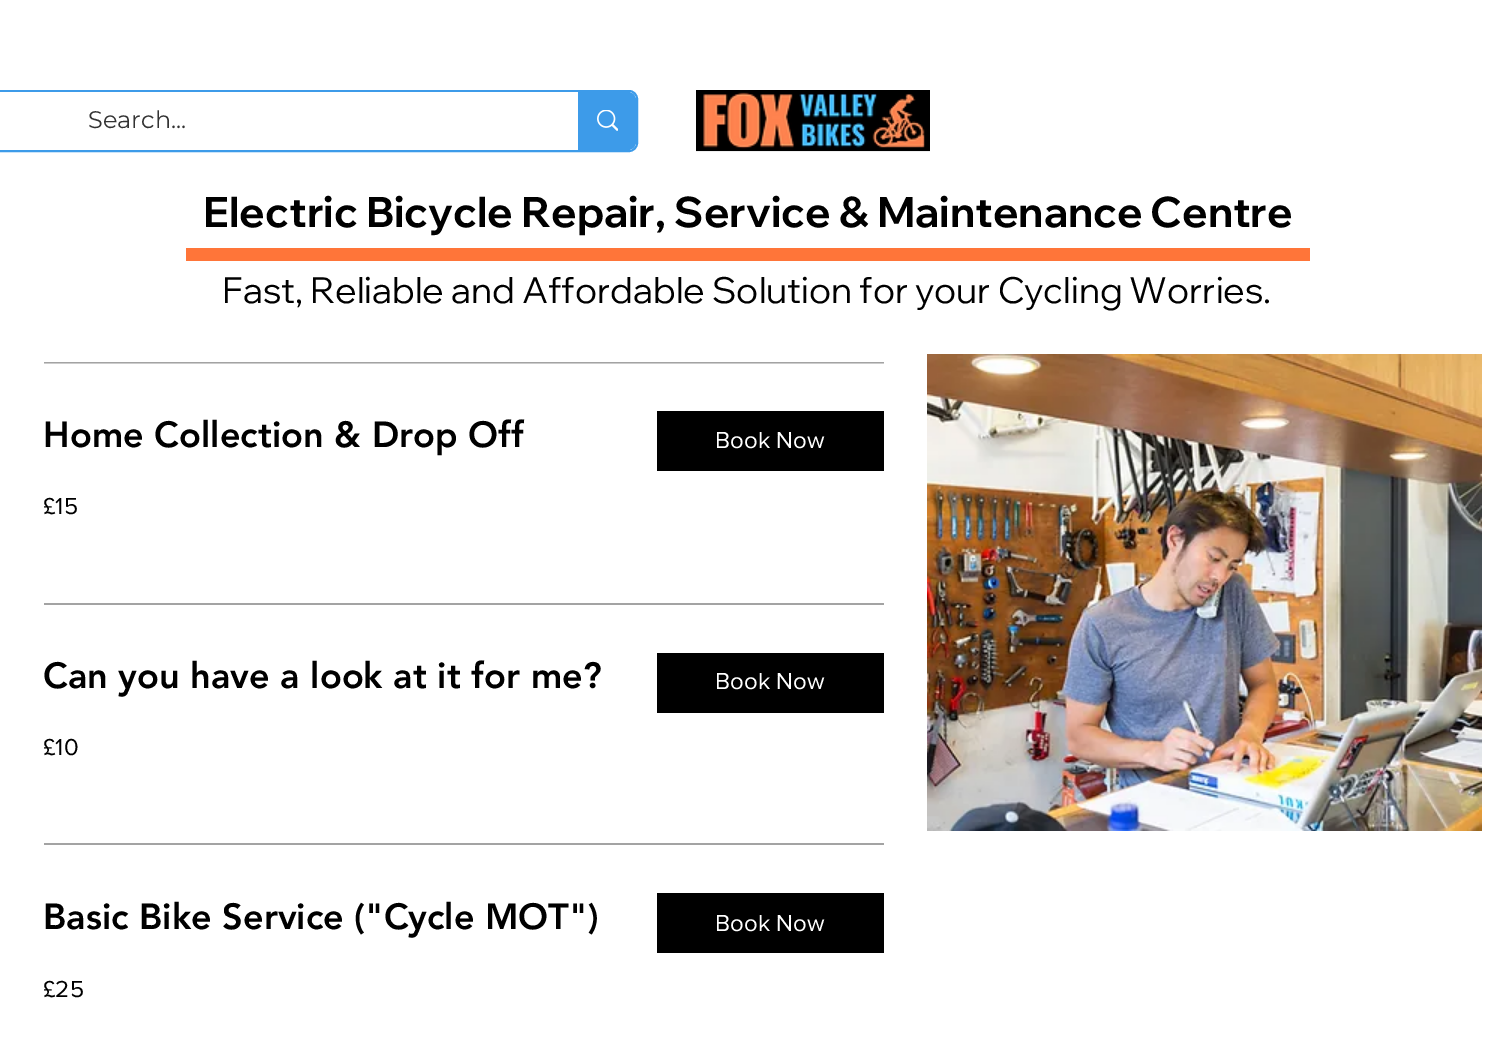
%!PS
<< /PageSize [1495 1039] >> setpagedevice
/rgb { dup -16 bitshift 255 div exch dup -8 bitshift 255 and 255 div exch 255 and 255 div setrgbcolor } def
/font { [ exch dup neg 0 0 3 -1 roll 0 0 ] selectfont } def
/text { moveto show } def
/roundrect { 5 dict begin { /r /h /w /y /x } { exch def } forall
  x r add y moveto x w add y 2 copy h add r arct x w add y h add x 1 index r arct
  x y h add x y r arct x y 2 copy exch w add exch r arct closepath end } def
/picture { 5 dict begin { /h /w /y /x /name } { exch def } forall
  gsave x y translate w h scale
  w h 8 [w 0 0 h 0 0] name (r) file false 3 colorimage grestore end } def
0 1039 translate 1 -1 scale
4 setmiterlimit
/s1 { /Montserrat-Regular 24 font 16#333333 rgb } def
/s2 { /WixMadeforDisplay-Bold 42 font 16#000000 rgb } def
/s3 { /WixMadeforDisplay-Regular 36 font 16#000000 rgb } def
/s4 { /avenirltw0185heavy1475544-Black 36 font 16#000000 rgb } def
/s5 { /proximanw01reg-Regular 24 font 16#000000 rgb } def
/s6 { /proximanw01reg-Regular 24 font 16#FFFFFF rgb } def
16#FFFFFF rgb
0 0 1495 1039 rectfill
16#3D9BE9 rgb
2 setlinewidth
-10 91 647 60 8 roundrect stroke
16#FFFFFF rgb
-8 92 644 58 8 roundrect fill
s1
(Search...) 88 128 text
16#3D9BE9 rgb
578 92 moveto 628 92 lineto 632.5 92 636 95.5 636 100 curveto 636 142 lineto 636 146.5 632.5 150 628 150 curveto 578 150 lineto closepath fill
(pic1.raw) 597 110 21 21 picture
(pic2.raw) 696 90 234 62 picture
s2
(Electric Bicycle Repair, Service & Maintenance Centre) 203 227 text
16#FF7539 rgb
186 248 1124 13 rectfill
s3
(Fast, Reliable and Affordable Solution for your Cycling Worries.) 222 303 text
16#A3A3A3 rgb
44 362 840 1 rectfill
16#CCCCCC rgb
44 363 840 1 rectfill
s4
(Home Collection & Drop Off) 43 447 text
gsave
44 362 840 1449 rectclip
s5
(£15) 43 514 text
grestore
657 411 227 60 rectfill
s6
(Book Now) 715 448 text
16#A3A3A3 rgb
44 603 840 2 rectfill
s4
(Can you have a look at it for me?) 43 688 text
gsave
44 362 840 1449 rectclip
s5
(£10) 43 755 text
grestore
657 653 227 60 rectfill
s6
(Book Now) 715 689 text
16#A3A3A3 rgb
44 843 840 2 rectfill
s4
(Basic Bike Service \("Cycle MOT"\)) 43 929 text
gsave
44 362 840 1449 rectclip
s5
(£25) 43 997 text
grestore
657 893 227 60 rectfill
s6
(Book Now) 715 931 text
(pic3.raw) 927 354 555 477 picture
showpage
